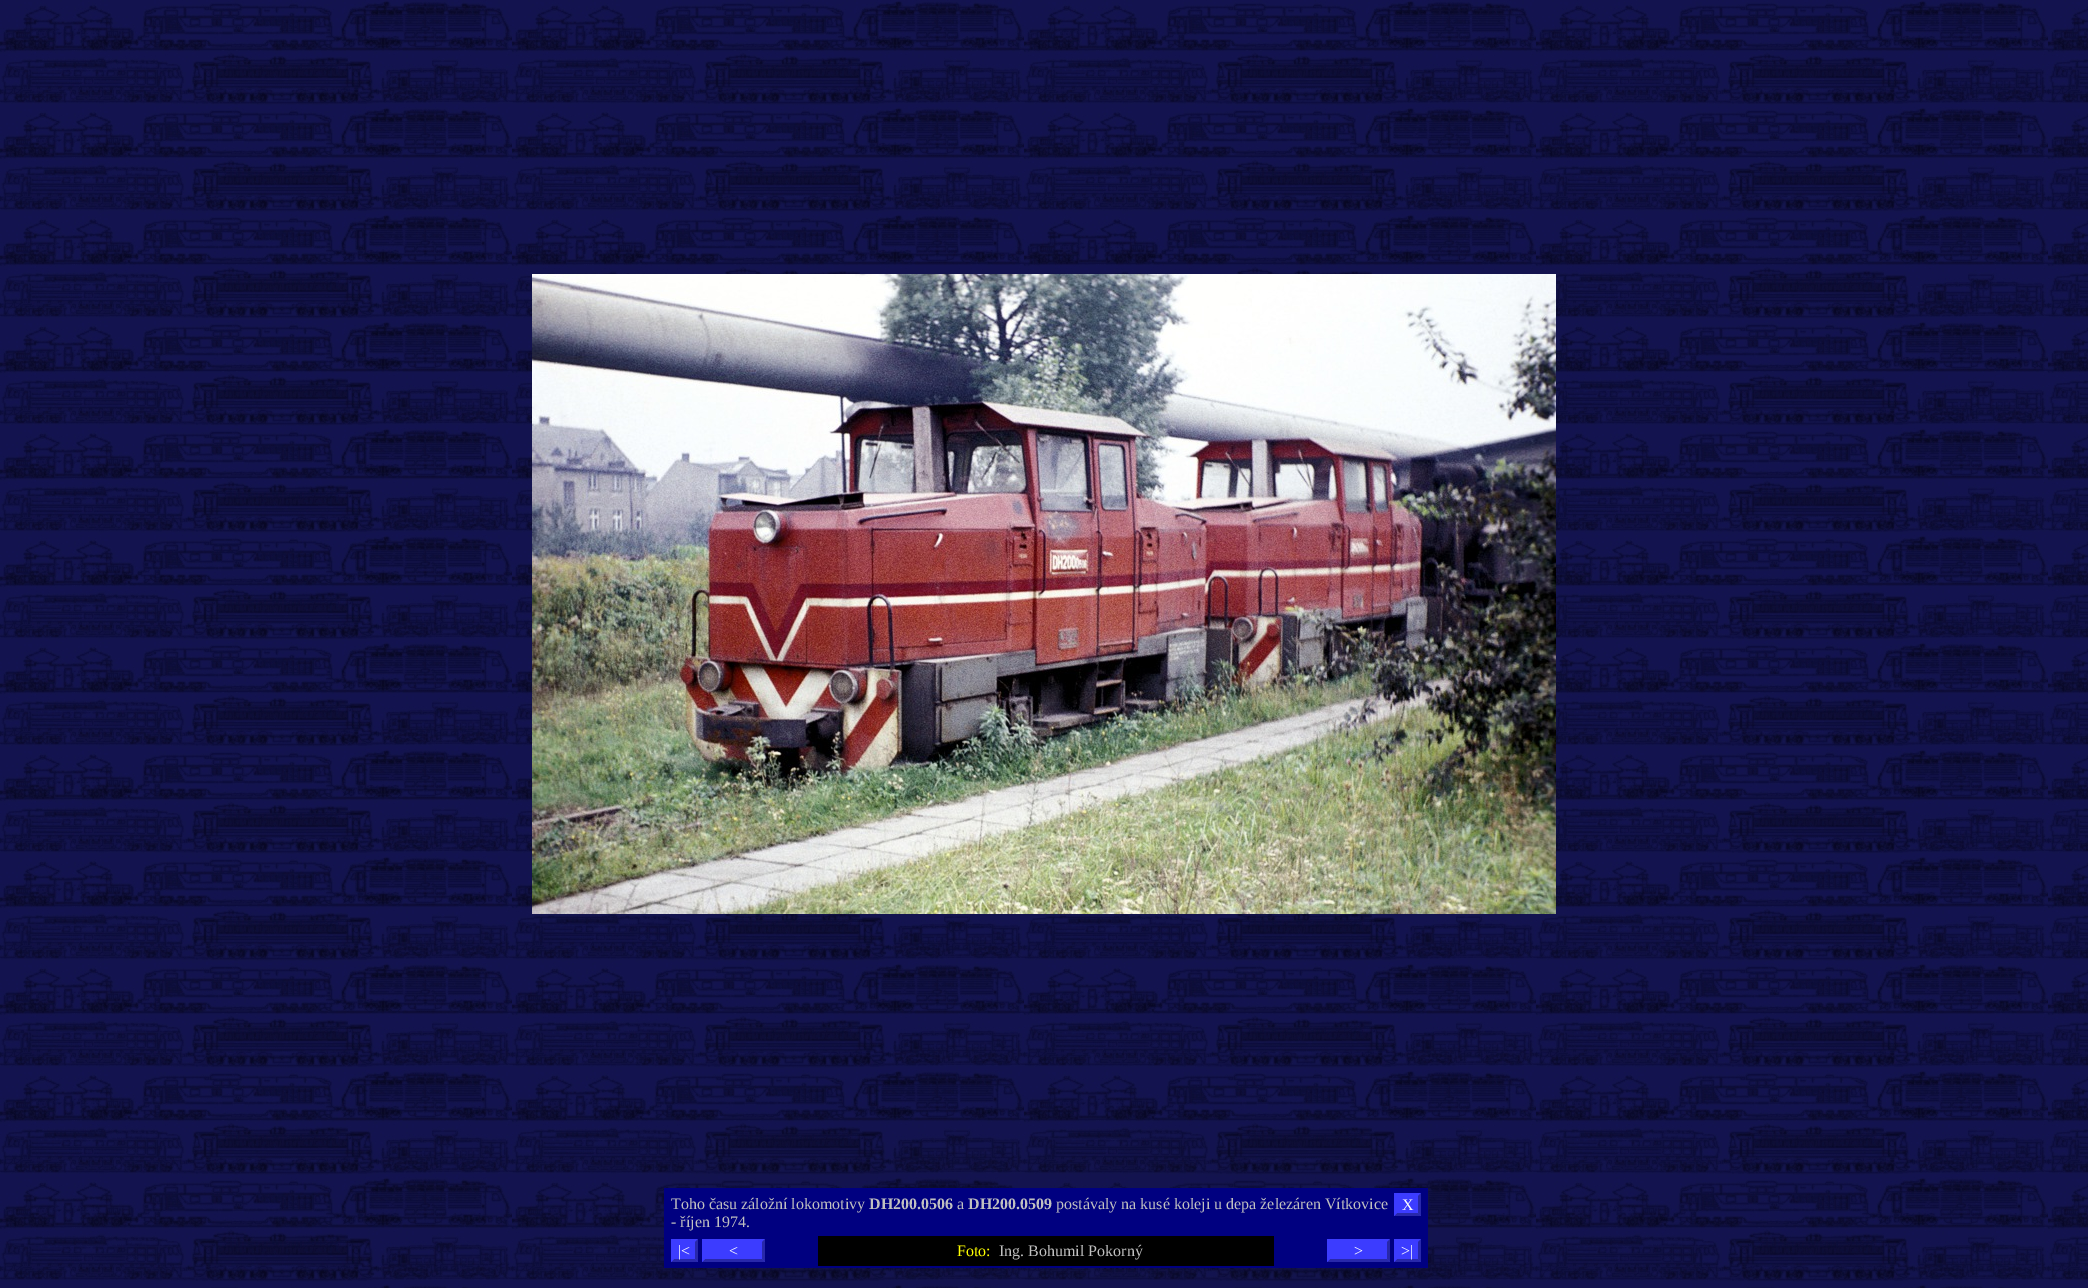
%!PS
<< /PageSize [2088 1288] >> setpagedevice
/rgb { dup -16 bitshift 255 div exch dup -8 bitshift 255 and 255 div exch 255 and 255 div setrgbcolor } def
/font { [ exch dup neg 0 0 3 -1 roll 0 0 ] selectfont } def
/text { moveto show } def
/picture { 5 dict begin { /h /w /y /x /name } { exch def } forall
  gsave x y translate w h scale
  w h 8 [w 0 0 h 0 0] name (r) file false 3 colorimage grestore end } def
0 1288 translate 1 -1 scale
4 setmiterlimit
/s1 { /LiberationSerif-Regular 16 font 16#C0C0C0 rgb } def
/s2 { /LiberationSerif-Bold 16 font 16#C0C0C0 rgb } def
/s3 { /LiberationSerif-Regular 16 font 16#FFFFFF rgb } def
/s4 { /LiberationSerif-Regular 16 font 16#FFFF00 rgb } def
16#FFFFFF rgb
0 0 2088 1288 rectfill
(pic1.raw) 0 0 2088 1288 picture
(pic2.raw) 532 274 1024 640 picture
16#000080 rgb
664 1188 764 80 rectfill
s1
(Toho času záložní lokomotivy) 671 1209 text
s2
(DH200.0506) 869 1209 text
s1
(a) 957 1209 text
s2
(DH200.0509) 968 1209 text
s1
(postávaly na kusé koleji u depa železáren Vítkovice) 1056 1209 text
(- říjen 1974.) 671 1227 text
16#3C3CFF rgb
1394 1193 27 23 rectfill
s3
(X) 1402 1210 text
16#2828AA rgb
1421 1193 moveto 1421 1216 lineto 1418 1213 lineto 1418 1196 lineto closepath fill
1421 1216 moveto 1394 1216 lineto 1397 1213 lineto 1418 1213 lineto closepath fill
16#3C3CFF rgb
1394 1216 moveto 1394 1193 lineto 1397 1196 lineto 1397 1213 lineto closepath fill
671 1239 27 23 rectfill
16#2828AA rgb
698 1239 moveto 698 1262 lineto 695 1259 lineto 695 1242 lineto closepath fill
698 1262 moveto 671 1262 lineto 674 1259 lineto 695 1259 lineto closepath fill
s3
(|<) 678 1256 text
16#3C3CFF rgb
671 1262 moveto 671 1239 lineto 674 1242 lineto 674 1259 lineto closepath fill
702 1239 63 23 rectfill
s3
(<) 729 1256 text
16#2828AA rgb
765 1239 moveto 765 1262 lineto 762 1259 lineto 762 1242 lineto closepath fill
765 1262 moveto 702 1262 lineto 705 1259 lineto 762 1259 lineto closepath fill
16#3C3CFF rgb
702 1262 moveto 702 1239 lineto 705 1242 lineto 705 1259 lineto closepath fill
16#000000 rgb
818 1236 456 30 rectfill
s4
(Foto:) 957 1256 text
s1
(Ing. Bohumil Pokorný) 999 1256 text
16#3C3CFF rgb
1327 1239 63 23 rectfill
s3
(>) 1354 1256 text
16#2828AA rgb
1390 1239 moveto 1390 1262 lineto 1387 1259 lineto 1387 1242 lineto closepath fill
1390 1262 moveto 1327 1262 lineto 1330 1259 lineto 1387 1259 lineto closepath fill
16#3C3CFF rgb
1327 1262 moveto 1327 1239 lineto 1330 1242 lineto 1330 1259 lineto closepath fill
1394 1239 27 23 rectfill
16#2828AA rgb
1421 1239 moveto 1421 1262 lineto 1418 1259 lineto 1418 1242 lineto closepath fill
1421 1262 moveto 1394 1262 lineto 1397 1259 lineto 1418 1259 lineto closepath fill
s3
(>|) 1401 1256 text
16#3C3CFF rgb
1394 1262 moveto 1394 1239 lineto 1397 1242 lineto 1397 1259 lineto closepath fill
showpage
